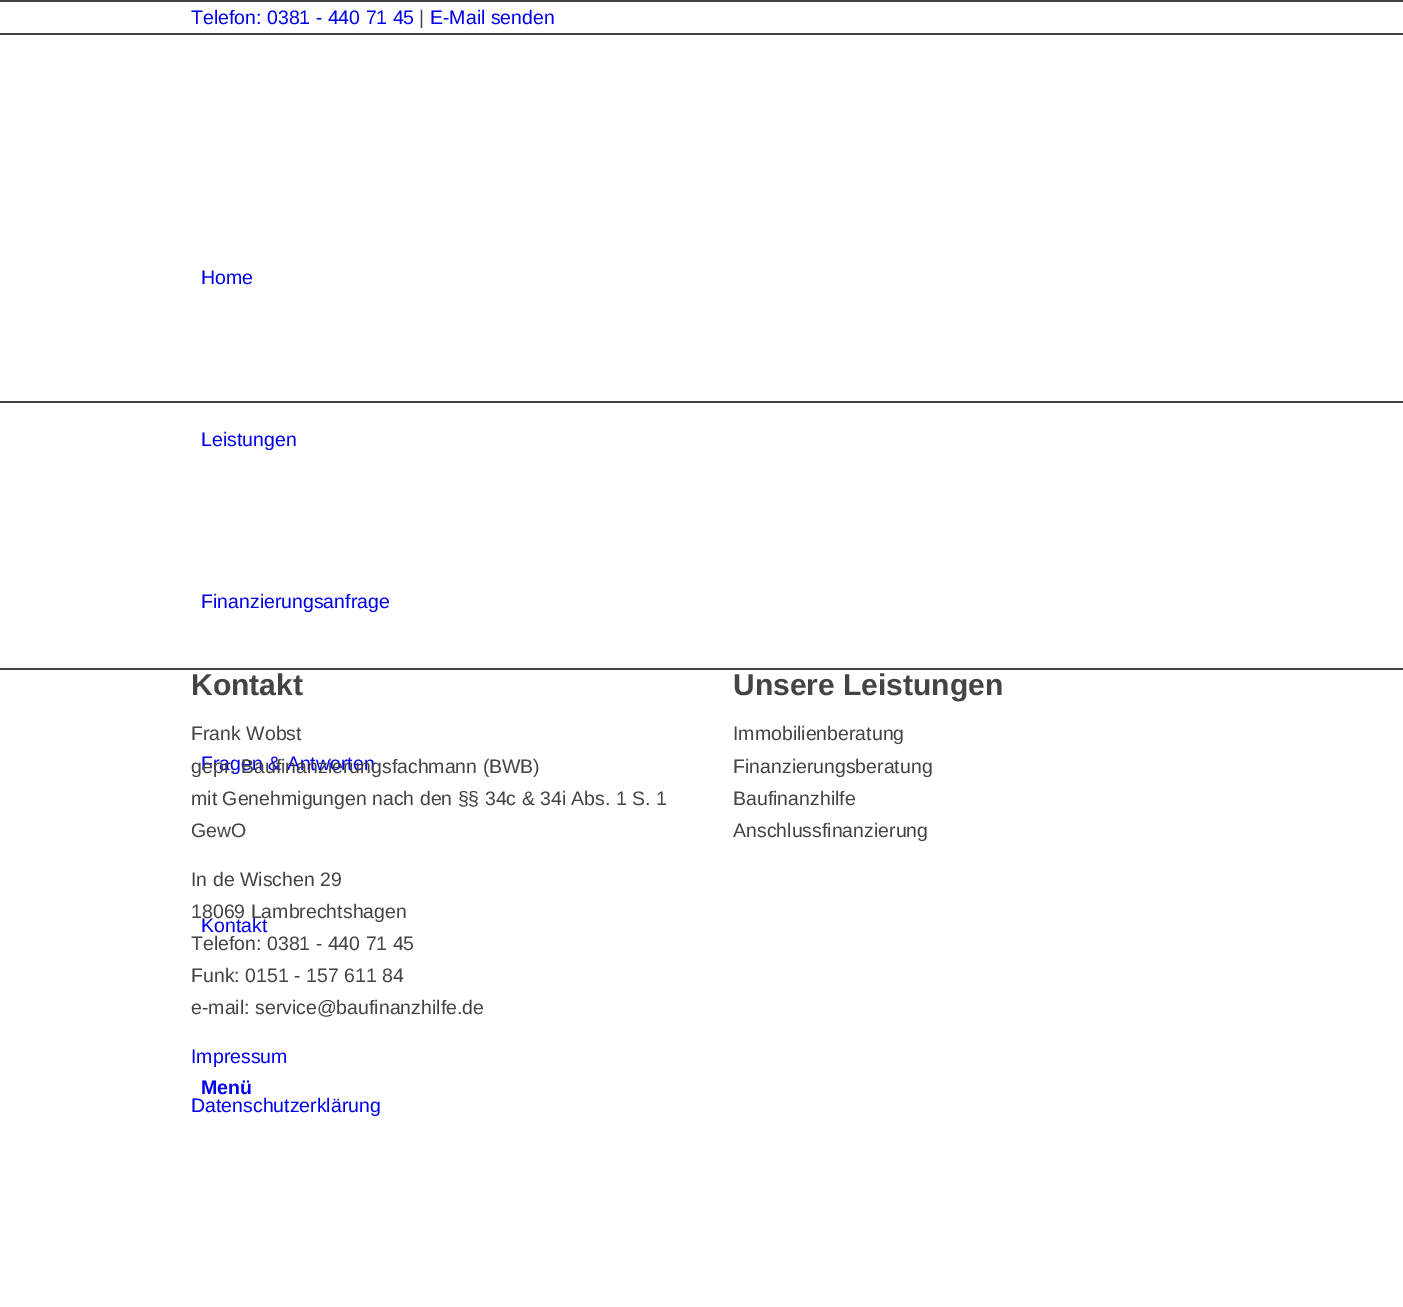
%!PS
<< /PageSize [1403 1307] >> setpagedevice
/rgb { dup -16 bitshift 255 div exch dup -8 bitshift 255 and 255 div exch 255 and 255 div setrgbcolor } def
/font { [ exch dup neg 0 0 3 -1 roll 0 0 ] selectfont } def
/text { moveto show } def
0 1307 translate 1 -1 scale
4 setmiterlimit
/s1 { /LiberationSans-Regular 19.5 font 16#0000EE rgb } def
/s2 { /LiberationSans-Regular 19.5 font 16#444444 rgb } def
/s3 { /LiberationSans-Bold 19.5 font 16#0000EE rgb } def
/s4 { /LiberationSans-Bold 30 font 16#444444 rgb } def
16#FFFFFF rgb
0 0 1403 1307 rectfill
16#444444 rgb
0 0 1403 2 rectfill
s1
(Telefon: 0381 - 440 71 45) 191 24 text
s2
(|) 419 24 text
s1
(E-Mail senden) 430 24 text
16#444444 rgb
0 33 1403 2 rectfill
s1
(Home) 201 284 text
(Leistungen) 201 446 text
(Finanzierungsanfrage) 201 608 text
(Fragen & Antworten) 201 770 text
(Kontakt) 201 932 text
s3
(Menü) 201 1094 text
16#444444 rgb
0 401 1403 2 rectfill
0 668 1403 2 rectfill
s4
(Kontakt) 191 695 text
s2
(Frank Wobst) 191 740 text
(gepr. Baufinanzierungsfachmann \(BWB\)) 191 773 text
(mit Genehmigungen nach den §§ 34c & 34i Abs. 1 S. 1) 191 805 text
(GewO) 191 837 text
(In de Wischen 29) 191 886 text
(18069 Lambrechtshagen) 191 918 text
(Telefon: 0381 - 440 71 45) 191 950 text
(Funk: 0151 - 157 611 84) 191 982 text
(e-mail: service@baufinanzhilfe.de) 191 1014 text
s1
(Impressum) 191 1063 text
(Datenschutzerklärung) 191 1112 text
s4
(Unsere Leistungen) 733 695 text
s2
(Immobilienberatung) 733 740 text
(Finanzierungsberatung) 733 773 text
(Baufinanzhilfe) 733 805 text
(Anschlussfinanzierung) 733 837 text
showpage
